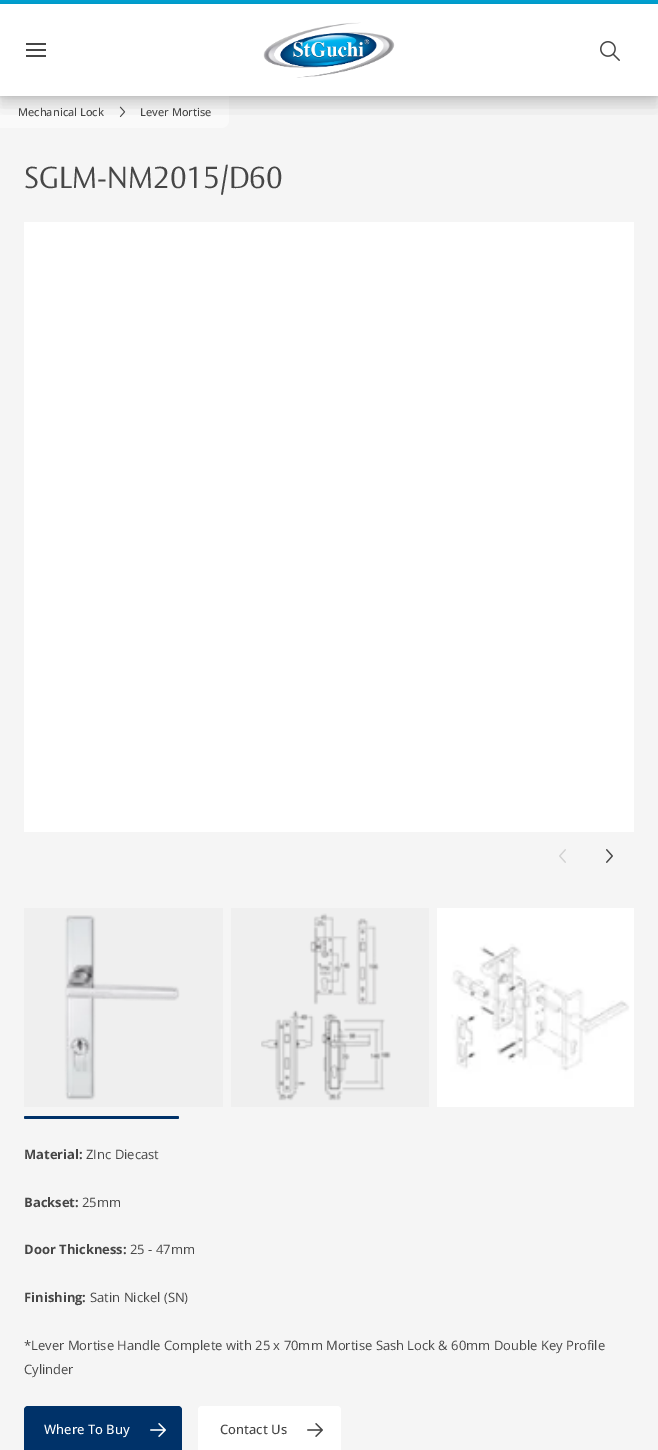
%!PS
<< /PageSize [658 1450] /PageUsesTransparency true >> setpagedevice
/rgb { dup -16 bitshift 255 div exch dup -8 bitshift 255 and 255 div exch 255 and 255 div setrgbcolor } def
/font { [ exch dup neg 0 0 3 -1 roll 0 0 ] selectfont } def
/text { moveto show } def
/alpha { dup .setfillconstantalpha .setstrokeconstantalpha } def
/roundrect { 5 dict begin { /r /h /w /y /x } { exch def } forall
  x r add y moveto x w add y 2 copy h add r arct x w add y h add x 1 index r arct
  x y h add x y r arct x y 2 copy exch w add exch r arct closepath end } def
/shadow { 12 dict begin { /a /b /q /h /w /y /x } { exch def } forall gsave /was 0 def
  9 -2 -9 { dup b mul 4 div /e exch def 1 sub .425 mul 2.718 exch exp 1 add a .99 .min exch div /now exch def
    1 1 now sub 1 was sub div sub alpha /was now def
    w h .min e 2 mul add 0 gt { x e sub y e sub w e 2 mul add h e 2 mul add
      q e add b .6 mul add w h .min 2 div e add .min 0 .max roundrect fill } if } for grestore end } def
/picture { 5 dict begin { /h /w /y /x /name } { exch def } forall
  gsave x y translate w h scale
  w h 8 [w 0 0 h 0 0] name (r) file false 3 colorimage grestore end } def
0 .pushpdf14devicefilter
0 1450 translate 1 -1 scale
4 setmiterlimit
/s1 { /OpenSans-Medium 11 font 16#464646 rgb } def
/s2 { /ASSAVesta-Light 30 font 16#464646 rgb } def
/s3 { /OpenSans-Bold 13 font 16#464646 rgb } def
/s4 { /OpenSans-Regular 13 font 16#464646 rgb } def
/s5 { /OpenSans-Medium 13 font 16#FFFFFF rgb } def
/s6 { /OpenSans-Medium 13 font 16#464646 rgb } def
16#F5F5F5 rgb
0 0 658 1450 rectfill
16#00A0D0 rgb
0 0 658 4 rectfill
16#FFFFFF rgb
0 4 658 92 rectfill
16#464646 rgb
26 43 20 2 rectfill
26 49 20 2 rectfill
26 55 20 2 rectfill
(pic1.raw) 263 22 132 56 picture
(pic2.raw) 600 41 20 20 picture
16#FAFAFA rgb
0 96 moveto 229 96 lineto 229 120 lineto 229 124.5 225.5 128 221 128 curveto 0 128 lineto closepath fill
gsave
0 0 moveto 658 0 lineto 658 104 lineto 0 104 lineto closepath 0 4 moveto 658 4 lineto 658 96 lineto 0 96 lineto closepath eoclip newpath
16#000000 rgb
0 5 658 92 0 2 0.15 shadow
grestore
(pic3.raw) 119 106 7 12 picture
gsave
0 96 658 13 rectclip
16#000000 rgb
0 12 658 92 0 6 0.1 shadow
grestore
gsave
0 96 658 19 rectclip
16#000000 rgb
0 20 658 92 0 10 0.05 shadow
grestore
s1
(Mechanical Lock) 18 116 text
(Lever Mortise) 140 116 text
s2
(SGLM-NM2015/D60) 24 188 text
16#FFFFFF rgb
24 222 610 610 rectfill
(pic4.raw) 559 849 7 14 picture
(pic5.raw) 606 849 7 14 picture
16#EFEFEF rgb
24 908 199 199 rectfill
(pic6.raw) 64 915 116 185 picture
231 908 198 199 rectfill
(pic7.raw) 261 913 130 188 picture
(pic8.raw) 437 908 197 199 picture
16#003269 rgb
24 1116 155 3 1.5 roundrect fill
s3
(Material:) 24 1159 text
s4
(ZInc Diecast) 86 1159 text
s3
(Backset:) 24 1207 text
s4
(25mm) 82 1207 text
s3
(Door Thickness:) 24 1254 text
s4
(25 - 47mm) 130 1254 text
s3
(Finishing:) 24 1302 text
s4
(Satin Nickel \(SN\)) 90 1302 text
(*Lever Mortise Handle Complete with 25 x 70mm Mortise Sash Lock & 60mm Double Key Profile) 24 1350 text
(Cylinder) 24 1374 text
16#003269 rgb
24 1406 158 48 4 roundrect fill
s5
(Where To Buy) 44 1434 text
(pic9.raw) 150 1423 16 14 picture
198 1406 143 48 4 roundrect fill
s6
(Contact Us) 220 1434 text
(pic10.raw) 307 1423 16 14 picture
.poppdf14devicefilter showpage
